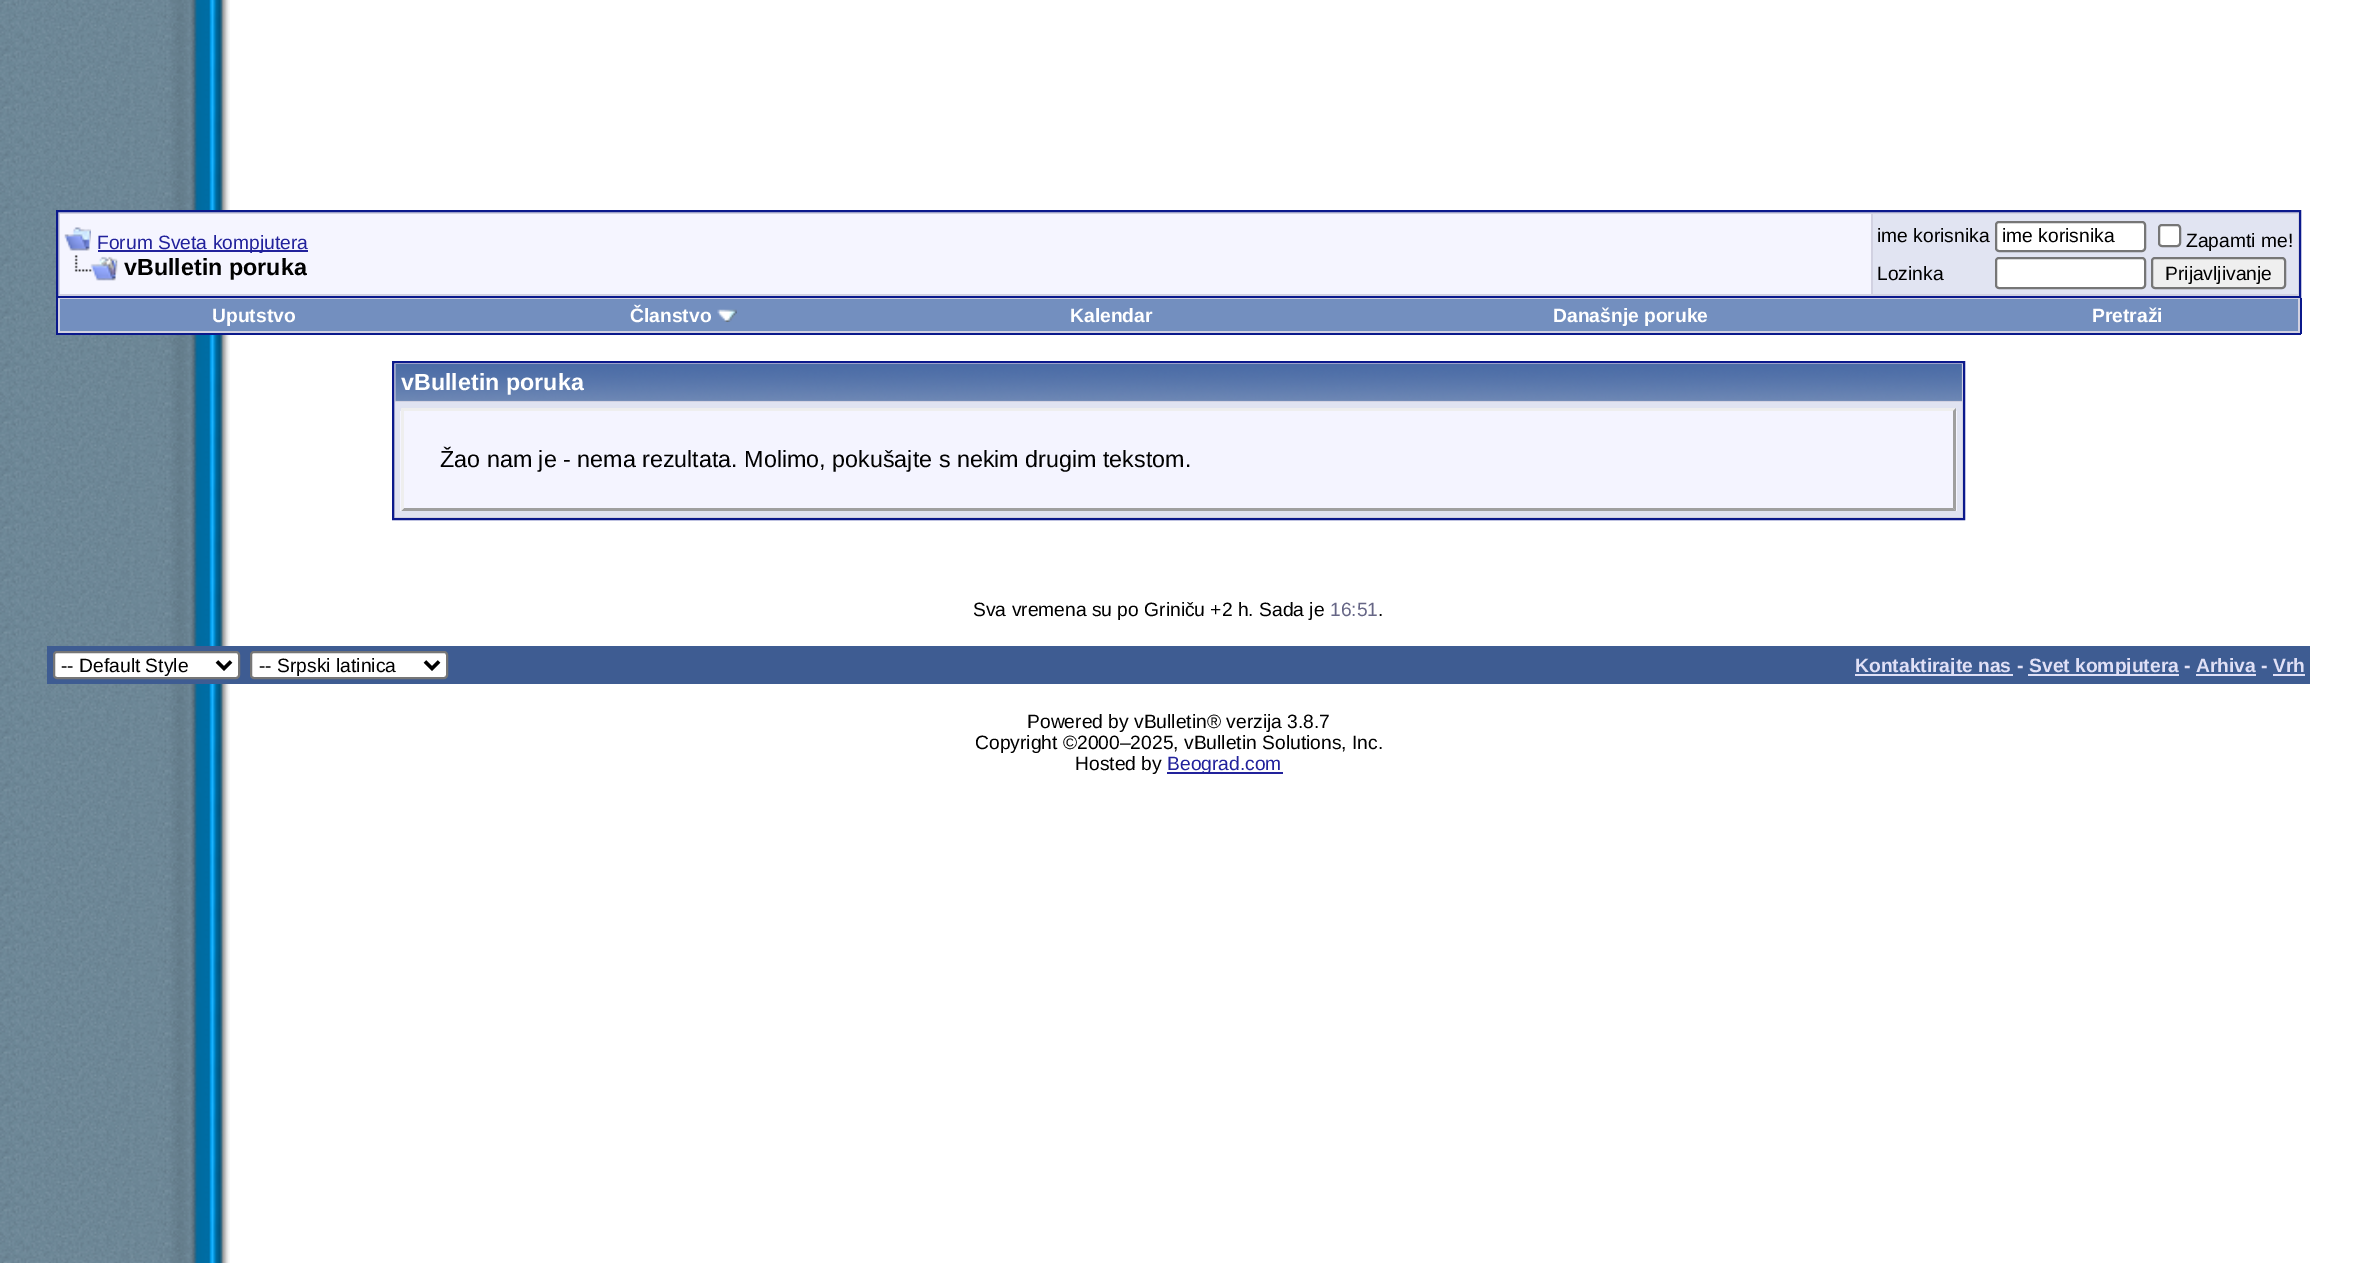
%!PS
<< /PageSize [2357 1263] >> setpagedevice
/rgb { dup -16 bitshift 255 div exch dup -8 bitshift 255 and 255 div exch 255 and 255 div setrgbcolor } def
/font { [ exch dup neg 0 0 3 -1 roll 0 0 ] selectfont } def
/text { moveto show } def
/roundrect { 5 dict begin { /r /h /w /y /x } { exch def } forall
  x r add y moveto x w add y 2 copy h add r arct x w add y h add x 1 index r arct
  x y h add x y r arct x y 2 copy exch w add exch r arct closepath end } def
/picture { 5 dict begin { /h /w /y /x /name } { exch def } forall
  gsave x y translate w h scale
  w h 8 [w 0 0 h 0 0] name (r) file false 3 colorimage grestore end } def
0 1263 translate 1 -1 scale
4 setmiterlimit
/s1 { /LiberationSans-Regular 19.25 font 16#22229C rgb } def
/s2 { /LiberationSans-Bold 23.3 font 16#000000 rgb } def
/s3 { /LiberationSans-Regular 19.25 font 16#000000 rgb } def
/s4 { /LiberationSans-Bold 19.25 font 16#FFFFFF rgb } def
/s5 { /LiberationSans-Bold 23.3 font 16#FFFFFF rgb } def
/s6 { /LiberationSans-Regular 23.3 font 16#000000 rgb } def
/s7 { /LiberationSans-Regular 19.25 font 16#666686 rgb } def
/s8 { /LiberationSans-Bold 19.25 font 16#E0E0F6 rgb } def
16#FFFFFF rgb
0 0 2357 1263 rectfill
(pic1.raw) 0 0 230 1263 picture
16#D1D1E1 rgb
57 211 moveto 2300 211 lineto 2300 297 lineto 57 297 lineto closepath gsave fill grestore
16#0B198C rgb
2 setlinewidth
stroke
16#F5F5FF rgb
60 214 1811 80 rectfill
(pic2.raw) 64 227 27 24 picture
16#22229C rgb
98 250 210 2 rectfill
s1
(Forum Sveta kompjutera) 97 249 text
(pic3.raw) 74 255 44 26 picture
s2
(vBulletin poruka) 124 275 text
16#E1E4F2 rgb
1873 214 425 80 rectfill
s3
(ime korisnika) 1877 242 text
16#FFFFFF rgb
1996 222 149 29 3 roundrect gsave fill grestore
16#767676 rgb
stroke
s3
(ime korisnika) 2002 242 text
16#FFFFFF rgb
2159 225 21 21 3 roundrect gsave fill grestore
16#767676 rgb
stroke
s3
(Zapamti me!) 2186 247 text
(Lozinka) 1877 280 text
16#FFFFFF rgb
1996 258 149 30 3 roundrect gsave fill grestore
16#767676 rgb
stroke
16#EFEFEF rgb
2152 258 133 30 3 roundrect gsave fill grestore
16#767676 rgb
stroke
s3
(Prijavljivanje) 2165 280 text
16#D1D1E1 rgb
58 298 2242 35 rectfill
16#0B198C rgb
2300 298 2 36 rectfill
56 333 2245 2 rectfill
56 298 2 36 rectfill
16#738FBF rgb
60 299 2238 32 rectfill
s4
(Uputstvo) 212 322 text
(Članstvo) 630 322 text
(pic4.raw) 717 309 20 13 picture
(Kalendar) 1070 322 text
(Današnje poruke) 1553 322 text
(Pretraži) 2092 322 text
16#D1D1E1 rgb
393 362 moveto 1964 362 lineto 1964 519 lineto 393 519 lineto closepath gsave fill grestore
16#0B198C rgb
stroke
16#869BBF rgb
396 364 1566 37 rectfill
(pic5.raw) 395 364 1567 37 picture
s5
(vBulletin poruka) 401 390 text
16#E0E3F1 rgb
395 402 1567 115 rectfill
16#E4E7F5 rgb
401 408 1556 3 rectfill
16#F4F4FF rgb
400 411 1557 100 rectfill
16#EEEEEE rgb
401 408 moveto 1956 408 lineto 1953 411 lineto 404 411 lineto closepath fill
16#9F9F9F rgb
1956 408 moveto 1956 511 lineto 1953 508 lineto 1953 411 lineto closepath fill
1956 511 moveto 401 511 lineto 404 508 lineto 1953 508 lineto closepath fill
16#EEEEEE rgb
401 511 moveto 401 408 lineto 404 411 lineto 404 508 lineto closepath fill
s6
(Žao nam je - nema rezultata. Molimo, pokušajte s nekim drugim tekstom.) 440 467 text
s3
(Sva vremena su po Griniču +2 h. Sada je) 973 616 text
s7
(16:51) 1330 616 text
s3
(.) 1378 616 text
16#3E5C92 rgb
47 646 2263 38 rectfill
16#FFFFFF rgb
54 652 185 26 3 roundrect gsave fill grestore
16#767676 rgb
stroke
16#000000 rgb
3.5 setlinewidth
217 661.5 moveto 224 668.5 lineto 231 661.5 lineto stroke
(-- Default Style) 61 672 text
16#FFFFFF rgb
251 652 196 26 3 roundrect gsave fill grestore
16#767676 rgb
2 setlinewidth
stroke
16#000000 rgb
3.5 setlinewidth
425 661.5 moveto 432 668.5 lineto 439 661.5 lineto stroke
(-- Srpski latinica) 259 672 text
16#E0E0F6 rgb
1855 674 158 2 rectfill
s8
(Kontaktirajte nas -) 1855 672 text
2028 674 151 2 rectfill
(Svet kompjutera - Arhiva - Vrh) 2029 672 text
2196 674 60 2 rectfill
2273 674 32 2 rectfill
s3
(Powered by vBulletin® verzija 3.8.7) 1027 728 text
(Copyright ©2000–2025, vBulletin Solutions, Inc.) 975 749 text
(Hosted by) 1075 770 text
16#22229C rgb
1167 772 116 2 rectfill
(Beograd.com) 1167 770 text
showpage
